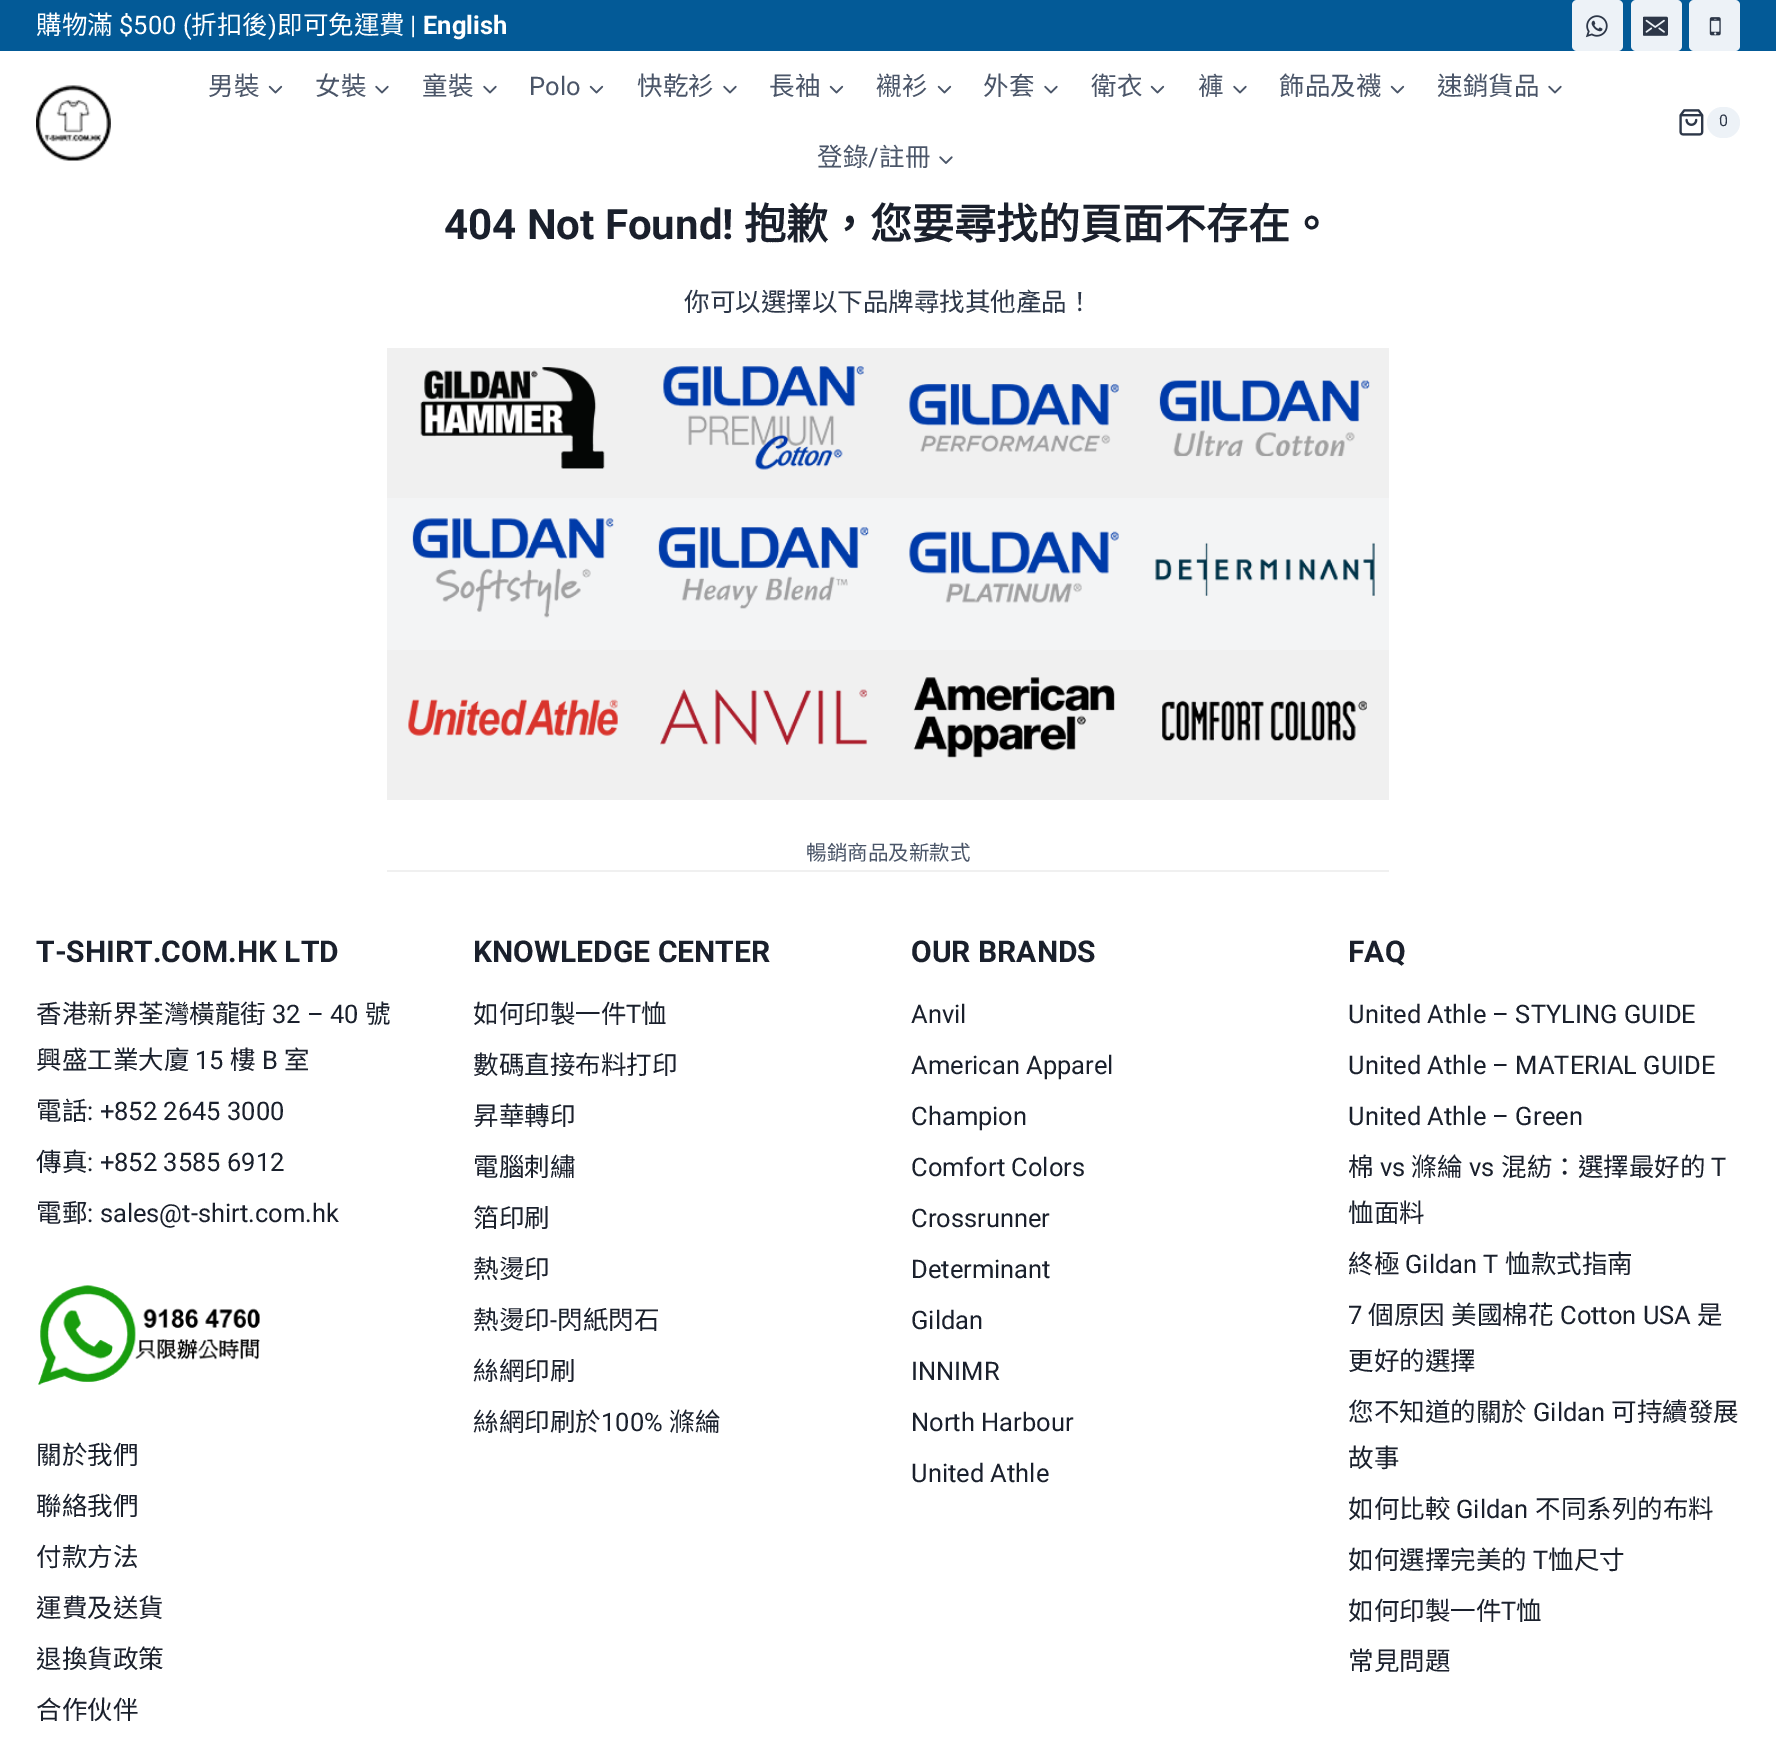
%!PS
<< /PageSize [1776 1747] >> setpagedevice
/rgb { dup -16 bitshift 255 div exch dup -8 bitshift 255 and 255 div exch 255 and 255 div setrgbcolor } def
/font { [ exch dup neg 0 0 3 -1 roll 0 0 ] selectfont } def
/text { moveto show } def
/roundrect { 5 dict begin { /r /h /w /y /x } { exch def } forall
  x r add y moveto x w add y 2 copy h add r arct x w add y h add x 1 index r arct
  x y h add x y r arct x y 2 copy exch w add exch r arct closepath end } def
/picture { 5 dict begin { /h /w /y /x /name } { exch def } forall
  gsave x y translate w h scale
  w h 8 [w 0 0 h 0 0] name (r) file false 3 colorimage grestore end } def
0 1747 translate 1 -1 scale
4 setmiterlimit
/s1 { /NotoSansCJKTC-Regular 25.5 font 16#FFFFFF rgb } def
/s2 { /Roboto-Regular 25.5 font 16#FFFFFF rgb } def
/s3 { /Roboto-Bold 25.5 font 16#FFFFFF rgb } def
/s4 { /NotoSansCJKTC-Regular 25.5 font 16#4A5568 rgb } def
/s5 { /Roboto-Regular 25.5 font 16#4A5568 rgb } def
/s6 { /Roboto-Regular 16 font 16#2D3748 rgb } def
/s7 { /Roboto-Bold 42 font 16#1A202C rgb } def
/s8 { /NotoSansCJKTC-Bold 42 font 16#1A202C rgb } def
/s9 { /NotoSansCJKTC-Regular 25.5 font 16#2D3748 rgb } def
/s10 { /NotoSansCJKTC-Regular 20.5 font 16#4A5568 rgb } def
/s11 { /Roboto-Bold 30 font 16#1A202C rgb } def
/s12 { /NotoSansCJKTC-Regular 25.5 font 16#1A202C rgb } def
/s13 { /Roboto-Regular 25.5 font 16#1A202C rgb } def
16#FFFFFF rgb
0 0 1776 1747 rectfill
16#035A97 rgb
0 0 1776 51 rectfill
s1
(購物滿) 36 34 text
s2
($500 \() 119 34 text
s1
(折扣後) 191 34 text
s2
(\)) 268 34 text
s1
(即可免運費) 277 34 text
s2
(|) 410 34 text
s3
(English) 423 34 text
16#EDF2F7 rgb
1572 0 51 51 5 roundrect fill
(pic1.raw) 1585 15 23 23 picture
1631 0 51 51 5 roundrect fill
(pic2.raw) 1643 16 25 20 picture
1689 0 51 51 5 roundrect fill
(pic3.raw) 1709 17 12 19 picture
(pic4.raw) 36 85 75 76 picture
s4
(男裝) 208 95 text
(pic5.raw) 268 85 15 9 picture
(女裝) 315 95 text
(pic6.raw) 375 85 14 9 picture
(童裝) 422 95 text
(pic6.raw) 483 85 14 9 picture
s5
(Polo) 529 95 text
(pic5.raw) 589 85 15 9 picture
s4
(快乾衫) 637 95 text
(pic6.raw) 723 85 14 9 picture
(長袖) 769 95 text
(pic5.raw) 829 85 15 9 picture
(襯衫) 876 95 text
(pic5.raw) 937 85 15 9 picture
(外套) 983 95 text
(pic6.raw) 1044 85 14 9 picture
(衛衣) 1091 95 text
(pic5.raw) 1150 85 15 9 picture
(褲) 1198 95 text
(pic6.raw) 1233 85 14 9 picture
(飾品及襪) 1279 95 text
(pic5.raw) 1390 85 15 9 picture
(速銷貨品) 1437 95 text
(pic6.raw) 1548 85 14 9 picture
(登錄) 817 166 text
s5
(/) 868 166 text
s4
(註冊) 879 166 text
(pic7.raw) 939 156 14 8 picture
(pic8.raw) 1679 109 25 27 picture
16#EDF2F7 rgb
1707 107 33 31 15.5 roundrect fill
s6
(0) 1719 126 text
s7
(404 Not Found!) 444 239 text
s8
(抱歉，您要尋找的頁面不存在。) 744 239 text
s9
(你可以選擇以下品牌尋找其他產品！) 684 311 text
16#F0F0F0 rgb
387 870 1002 2 rectfill
16#F3F4F5 rgb
387 498 1002 152 rectfill
16#F0F0F0 rgb
387 348 1002 150 rectfill
(pic9.raw) 420 367 185 102 picture
(pic10.raw) 663 366 201 104 picture
(pic11.raw) 909 384 210 68 picture
(pic12.raw) 1159 380 211 77 picture
(pic13.raw) 412 518 202 100 picture
(pic14.raw) 658 527 211 82 picture
(pic15.raw) 909 531 210 72 picture
(pic16.raw) 1155 542 220 54 picture
387 650 1002 150 rectfill
(pic17.raw) 408 699 210 37 picture
(pic18.raw) 660 689 208 56 picture
(pic19.raw) 913 677 202 81 picture
(pic20.raw) 1162 700 205 41 picture
s10
(暢銷商品及新款式) 806 860 text
s11
(T-SHIRT.COM.HK LTD) 36 962 text
s12
(香港新界荃灣橫龍街) 36 1023 text
s13
(32 – 40) 272 1023 text
s12
(號) 365 1023 text
(興盛工業大廈) 36 1069 text
s13
(15) 195 1069 text
s12
(樓) 230 1069 text
s13
(B) 262 1069 text
s12
(室) 284 1069 text
(電話) 36 1120 text
s13
(: +852 2645 3000) 87 1120 text
s12
(傳真) 36 1171 text
s13
(: +852 3585 6912) 87 1171 text
s12
(電郵) 36 1222 text
s13
(: sales@t-shirt.com.hk) 87 1222 text
(pic21.raw) 38 1285 222 100 picture
s12
(關於我們) 36 1464 text
(聯絡我們) 36 1515 text
(付款方法) 36 1566 text
(運費及送貨) 36 1617 text
(退換貨政策) 36 1668 text
(合作伙伴) 36 1719 text
s11
(KNOWLEDGE CENTER) 473 962 text
s12
(如何印製一件) 473 1023 text
s13
(T) 626 1023 text
s12
(恤) 641 1023 text
(數碼直接布料打印) 473 1074 text
(昇華轉印) 473 1125 text
(電腦刺繡) 473 1176 text
(箔印刷) 473 1227 text
(熱燙印) 473 1278 text
(熱燙印) 473 1329 text
s13
(-) 550 1329 text
s12
(閃紙閃石) 557 1329 text
(絲網印刷) 473 1380 text
(絲網印刷於) 473 1431 text
s13
(100%) 601 1431 text
s12
(滌綸) 669 1431 text
s11
(OUR BRANDS) 911 962 text
s13
(Anvil) 911 1023 text
(American Apparel) 911 1074 text
(Champion) 911 1125 text
(Comfort Colors) 911 1176 text
(Crossrunner) 911 1227 text
(Determinant) 911 1278 text
(Gildan) 911 1329 text
(INNIMR) 911 1380 text
(North Harbour) 911 1431 text
(United Athle) 911 1482 text
s11
(FAQ) 1348 962 text
s13
(United Athle – STYLING GUIDE) 1348 1023 text
(United Athle – MATERIAL GUIDE) 1348 1074 text
(United Athle – Green) 1348 1125 text
s12
(棉) 1348 1176 text
s13
(vs) 1380 1176 text
s12
(滌綸) 1411 1176 text
s13
(vs) 1469 1176 text
s12
(混紡：選擇最好的) 1501 1176 text
s13
(T) 1711 1176 text
s12
(恤面料) 1348 1222 text
(終極) 1348 1273 text
s13
(Gildan T) 1405 1273 text
s12
(恤款式指南) 1505 1273 text
s13
(7) 1348 1324 text
s12
(個原因) 1368 1324 text
(美國棉花) 1451 1324 text
s13
(Cotton USA) 1560 1324 text
s12
(是) 1697 1324 text
(更好的選擇) 1348 1370 text
(您不知道的關於) 1348 1421 text
s13
(Gildan) 1533 1421 text
s12
(可持續發展) 1611 1421 text
(故事) 1348 1467 text
(如何比較) 1348 1518 text
s13
(Gildan) 1456 1518 text
s12
(不同系列的布料) 1535 1518 text
(如何選擇完美的) 1348 1569 text
s13
(T) 1533 1569 text
s12
(恤尺寸) 1548 1569 text
(如何印製一件) 1348 1620 text
s13
(T) 1501 1620 text
s12
(恤) 1516 1620 text
(常見問題) 1348 1670 text
showpage
